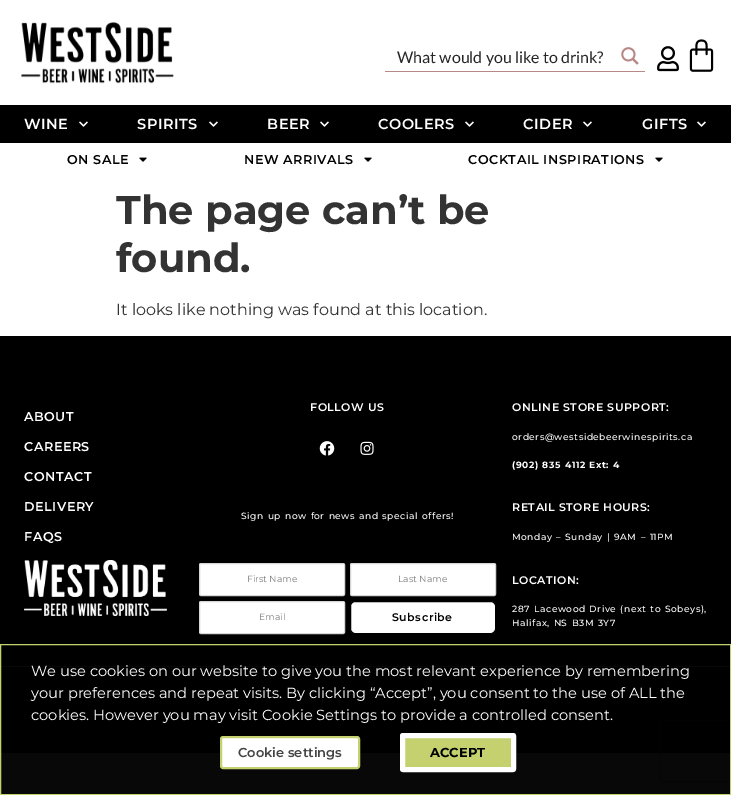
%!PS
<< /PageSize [731 795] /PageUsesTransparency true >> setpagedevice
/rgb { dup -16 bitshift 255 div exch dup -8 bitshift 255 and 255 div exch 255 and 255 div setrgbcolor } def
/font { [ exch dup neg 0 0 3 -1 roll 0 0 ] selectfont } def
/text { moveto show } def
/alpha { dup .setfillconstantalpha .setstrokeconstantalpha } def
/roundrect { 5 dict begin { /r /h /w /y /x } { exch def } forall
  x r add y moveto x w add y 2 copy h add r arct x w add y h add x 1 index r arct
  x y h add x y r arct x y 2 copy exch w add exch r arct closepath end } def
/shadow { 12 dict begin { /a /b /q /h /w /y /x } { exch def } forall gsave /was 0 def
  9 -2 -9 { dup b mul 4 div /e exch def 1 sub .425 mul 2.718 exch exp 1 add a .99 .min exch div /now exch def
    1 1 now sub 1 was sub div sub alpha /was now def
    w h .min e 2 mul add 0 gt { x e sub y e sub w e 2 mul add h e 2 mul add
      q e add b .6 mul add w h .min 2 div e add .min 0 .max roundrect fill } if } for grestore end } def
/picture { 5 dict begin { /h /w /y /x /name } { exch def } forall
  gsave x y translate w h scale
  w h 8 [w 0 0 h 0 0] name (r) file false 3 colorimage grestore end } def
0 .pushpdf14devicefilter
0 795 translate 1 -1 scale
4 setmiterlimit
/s1 { /Lato-Regular 16 font 16#262626 rgb } def
/s2 { /Montserrat-Bold 40 font 16#333333 rgb } def
/s3 { /Montserrat-Regular 16 font 16#333333 rgb } def
/s4 { /Montserrat-Regular 9.1 font 16#797A7C rgb } def
/s5 { /Montserrat-Regular 14.65 font 16#FFFFFF rgb } def
/s6 { /Montserrat-SemiBold 13 font 16#444444 rgb } def
/s7 { /Montserrat-Bold 13 font 16#000000 rgb } def
16#FFFFFF rgb
0 0 731 795 rectfill
16#080808 rgb
1 753 729 41 rectfill
(pic1.raw) 21 22 153 62 picture
16#B78888 rgb
385 71 260 1 rectfill
s1
(What would you like to drink?) 397 63 text
(pic2.raw) 621 47 18 18 picture
(pic3.raw) 657 46 22 26 picture
(pic4.raw) 689 39 25 33 picture
16#000000 rgb
0 105 731 38 rectfill
/Montserrat-SemiBold 14.5 font
16#FFFFFF rgb
24 129 moveto 0.5 0 (WINE) ashow
(pic5.raw) 79 121 9 6 picture
137 129 moveto 0.5 0 (SPIRITS) ashow
(pic5.raw) 209 121 9 6 picture
267 129 moveto 0.5 0 (BEER) ashow
(pic5.raw) 320 121 9 6 picture
378 129 moveto 0.5 0 (COOLERS) ashow
(pic5.raw) 465 121 9 6 picture
523 129 moveto 0.5 0 (CIDER) ashow
(pic5.raw) 583 121 9 6 picture
642 129 moveto 0.5 0 (GIFTS) ashow
(pic5.raw) 697 121 9 6 picture
/Montserrat-SemiBold 12.75 font
16#000000 rgb
67 164 moveto 0.5 0 (ON SALE) ashow
(pic6.raw) 139 157 8 5 picture
244 164 moveto 0.5 0 (NEW ARRIVALS) ashow
(pic6.raw) 364 157 8 5 picture
468 164 moveto 0.5 0 (COCKTAIL INSPIRATIONS) ashow
(pic6.raw) 655 157 8 5 picture
s2
(The page can’t be) 116 224 text
(found.) 116 272 text
s3
(It looks like nothing was found at this location.) 116 315 text
16#000000 rgb
0 336 731 308 rectfill
1 645 729 108 rectfill
/Montserrat-SemiBold 12.75 font
16#FFFFFF rgb
24 421 moveto 0.5 0 (ABOUT) ashow
24 451 moveto 0.5 0 (CAREERS) ashow
24 481 moveto 0.5 0 (CONTACT) ashow
24 511 moveto 0.5 0 (DELIVERY) ashow
24 541 moveto 0.5 0 (FAQS) ashow
(pic7.raw) 24 560 143 56 picture
/Montserrat-SemiBold 11 font
310 411 moveto 0.5 0 (FOLLOW US) ashow
(pic8.raw) 319 441 16 15 picture
(pic9.raw) 360 441 14 14 picture
/Montserrat-Medium 9.1 font
241 519 moveto 1 0 32 0.5 0 (Sign up now for news and special offers!) awidthshow
199.5 563.5 145 32 1.5 roundrect gsave fill grestore
16#D7D7D9 rgb
stroke
s4
(First Name) 247 582 text
16#FFFFFF rgb
350.5 563.5 145 32 1.5 roundrect gsave fill grestore
16#D7D7D9 rgb
stroke
s4
(Last Name) 398 582 text
16#FFFFFF rgb
199.5 601.5 145 32 1.5 roundrect gsave fill grestore
16#D7D7D9 rgb
stroke
s4
(Email) 259 620 text
16#FFFFFF rgb
350.5 601.5 145 32 4.5 roundrect gsave fill grestore
16#000000 rgb
stroke
/Montserrat-SemiBold 11 font
392 621 moveto 0.5 0 (Subscribe) ashow
gsave
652 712 moveto 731 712 lineto 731 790 lineto 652 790 lineto closepath 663 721 moveto 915 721 lineto 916 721 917 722 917 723 curveto 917 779 lineto 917 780 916 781 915 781 curveto 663 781 lineto 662 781 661 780 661 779 curveto 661 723 lineto 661 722 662 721 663 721 curveto closepath eoclip newpath
16#040404 rgb
661 721 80 60 2 2.5 1 shadow
grestore
16#FFFFFF rgb
512 411 moveto 0.5 0 (ONLINE STORE SUPPORT:) ashow
/Montserrat-Medium 9.1 font
512 440 moveto 0.5 0 (orders@westsidebeerwinespirits.ca) ashow
/Montserrat-Bold 9.1 font
512 468 moveto 1 0 32 0.5 0 (\(902\) 835 4112) awidthshow
589 468 moveto 1 0 32 0.5 0 (Ext: 4) awidthshow
/Montserrat-SemiBold 11 font
512 511 moveto 0.5 0 (RETAIL STORE HOURS:) ashow
/Montserrat-Medium 9.1 font
512 540 moveto 1 0 32 0.5 0 (Monday – Sunday | 9AM – 11PM) awidthshow
/Montserrat-SemiBold 11 font
512 584 moveto 0.5 0 (LOCATION:) ashow
/Montserrat-Medium 9.1 font
512 612 moveto 1 0 32 0.5 0 (287 Lacewood Drive \(next to Sobeys\),) awidthshow
512 626 moveto 1 0 32 0.5 0 (Halifax, NS B3M 3Y7) awidthshow
16#080808 rgb
0 666 731 1 rectfill
322 685 1 20 rectfill
16#C4D16E rgb
0.5 644.5 730 150 rectstroke
s5
(We use cookies on our website to give you the most relevant experience by remembering) 31 676 text
(your preferences and repeat visits. By clicking “Accept”, you consent to the use of ALL the) 31 698 text
(cookies. However you may visit Cookie Settings to provide a controlled consent.) 31 720 text
221 737 138 31 2 roundrect gsave fill grestore
16#C4D16E rgb
2 setlinewidth
stroke
s6
(Cookie settings) 238 757 text
16#C4D16E rgb
402.5 735.5 111 34 0.5 roundrect gsave fill grestore
16#FFFFFF rgb
5 setlinewidth
stroke
s7
(ACCEPT) 430 757 text
.poppdf14devicefilter showpage
